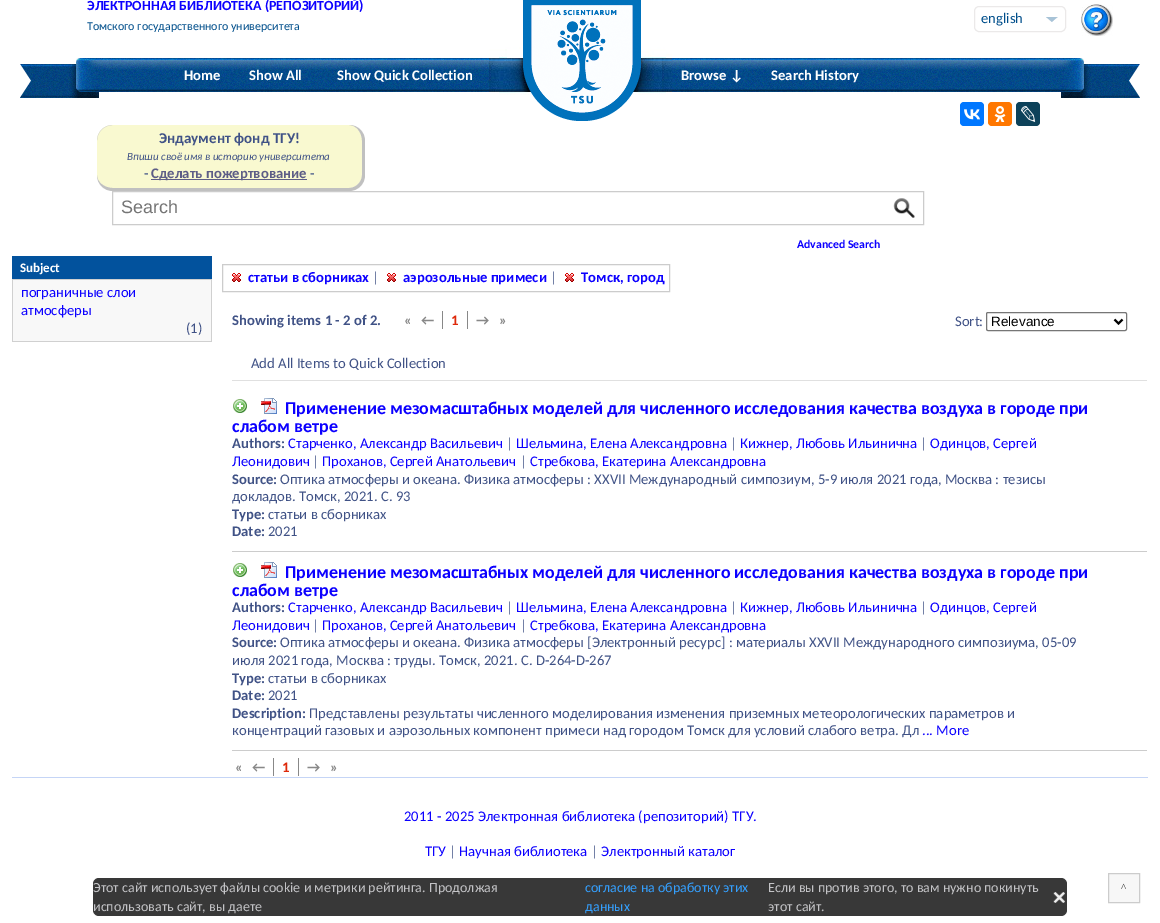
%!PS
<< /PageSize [1160 923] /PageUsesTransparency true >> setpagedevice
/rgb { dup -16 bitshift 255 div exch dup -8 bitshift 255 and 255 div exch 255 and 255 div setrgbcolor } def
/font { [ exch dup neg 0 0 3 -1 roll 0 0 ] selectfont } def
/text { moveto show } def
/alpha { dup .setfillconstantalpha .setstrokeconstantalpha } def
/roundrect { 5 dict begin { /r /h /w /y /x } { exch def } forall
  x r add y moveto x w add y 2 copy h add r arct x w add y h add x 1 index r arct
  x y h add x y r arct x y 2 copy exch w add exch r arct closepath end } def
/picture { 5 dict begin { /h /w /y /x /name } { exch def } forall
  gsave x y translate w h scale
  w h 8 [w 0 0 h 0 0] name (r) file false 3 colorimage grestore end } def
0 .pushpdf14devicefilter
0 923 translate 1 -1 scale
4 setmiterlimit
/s1 { /Carlito-Bold 14 font 16#0C00FF rgb } def
/s2 { /Carlito-Regular 12 font 16#004E8B rgb } def
/s3 { /Carlito-Regular 14.67 font 16#004E8B rgb } def
/s4 { /Carlito-Bold 14.67 font 16#FFFFFF rgb } def
/s5 { /Carlito-Bold 15 font 16#405286 rgb } def
/s6 { /Carlito-Italic 11 font 16#405286 rgb } def
/s7 { /Carlito-Regular 14.67 font 16#405286 rgb } def
/s8 { /Carlito-Bold 14.67 font 16#5D5D86 rgb } def
/s9 { /LiberationSans-Regular 18 font 16#757575 rgb } def
/s10 { /Carlito-Bold 11.75 font 16#0C00FF rgb } def
/s11 { /Carlito-Bold 13 font 16#FFFFFF rgb } def
/s12 { /Carlito-Regular 14.67 font 16#0C00FF rgb } def
/s13 { /Carlito-Bold 14.67 font 16#0C00FF rgb } def
/s14 { /Carlito-Bold 14.67 font 16#405286 rgb } def
/s15 { /Carlito-Bold 14.67 font 16#888888 rgb } def
/s16 { /Carlito-Bold 14.67 font 16#DE290A rgb } def
/s17 { /LiberationSans-Regular 13.5 font 16#000000 rgb } def
/s18 { /Carlito-Bold 18 font 16#0C00FF rgb } def
/s19 { /Carlito-Regular 14 font 16#C4C4C7 rgb } def
/s20 { /Carlito-Regular 14 font 16#34A0FF rgb } def
/s21 { /LiberationSerif-Regular 11 font 16#333333 rgb } def
16#FFFFFF rgb
0 0 1160 923 rectfill
s1
(ЭЛЕКТРОННАЯ БИБЛИОТЕКА \(РЕПОЗИТОРИЙ\)) 87 10 text
s2
(Томского государственного университета) 87 30 text
16#EBE9E9 rgb
974.5 6.5 91 25 4.5 roundrect stroke
(pic1.raw) 1046 17 12 5 picture
s3
(english) 981 23 text
(pic2.raw) 1081 4 32 32 picture
(pic3.raw) 20 58 95 40 picture
(pic4.raw) 115 58 930 34 picture
s4
(Home) 184 80 text
(Show All) 249 80 text
(Show Quick Collection) 337 80 text
(pic5.raw) 489 0 183 121 picture
(Browse ↓) 681 80 text
(Search History) 771 80 text
(pic6.raw) 1045 58 95 40 picture
16#F9F9D0 rgb
113 125 moveto 349 125 lineto 356 125 362 132 362 141 curveto 362 175 lineto 362 182 356 188 349 188 curveto 113 188 lineto 104 188 97 182 97 175 curveto 97 141 lineto 97 132 104 125 113 125 curveto closepath fill
16#C0C0C0 rgb
113 125 moveto 349 125 lineto 358 125 365 132 365 141 curveto 365 175 lineto 365 184 358 191 349 191 curveto 113 191 lineto 104 191 97 184 97 175 curveto 97 141 lineto 97 132 104 125 113 125 curveto closepath 113 125 moveto 349 125 lineto 356 125 362 132 362 141 curveto 362 175 lineto 362 182 356 188 349 188 curveto 113 188 lineto 104 188 97 182 97 175 curveto 97 141 lineto 97 132 104 125 113 125 curveto closepath eofill
s5
(Эндаумент фонд ТГУ!) 159 143 text
s6
(Впиши своё имя в историю университета) 127 160 text
s7
(-) 144 178 text
16#5D5D86 rgb
151 179 156 1 rectfill
s8
(Сделать пожертвование) 151 178 text
s7
(-) 310 178 text
16#CCCCCC rgb
112.5 191.5 811 33 rectstroke
s9
(Search) 121 213 text
(pic7.raw) 893 198 22 20 picture
s10
(Advanced Search) 797 248 text
16#D0D0D0 rgb
12 341 200 1 rectfill
16#02529D rgb
12 256 200 23 rectfill
16#D0D0D0 rgb
12 279 200 1 rectfill
s11
(Subject) 20 272 text
16#F8F8F8 rgb
13 280 198 61 rectfill
16#D0D0D0 rgb
211 280 1 61 rectfill
12 280 1 61 rectfill
s12
(пограничные слои) 21 297 text
(атмосферы) 21 315 text
s7
(\(1\)) 186 333 text
16#CCCCCC rgb
222.5 264.5 447 27 rectstroke
(pic8.raw) 232 273 9 9 picture
s13
(статьи в сборниках) 248 282 text
s7
(|) 372 282 text
(pic8.raw) 387 273 9 9 picture
s13
(аэрозольные примеси) 403 282 text
s7
(|) 550 282 text
(pic8.raw) 565 273 9 9 picture
s13
(Томск, город) 581 282 text
16#0077FF rgb
960 102 24 24 4 roundrect fill
(pic9.raw) 964 109 16 11 picture
16#FF7700 rgb
988 102 24 24 4 roundrect fill
(pic10.raw) 994 106 12 16 picture
16#0D425A rgb
1016 102 24 24 4 roundrect fill
(pic11.raw) 1021 106 15 16 picture
s14
(Showing items 1 - 2 of 2.) 232 325 text
s15
(«) 404 325 text
(←) 421 325 text
442 311 1 18 rectfill
s16
(1) 451 325 text
s15
(→) 476 325 text
467 311 1 18 rectfill
(») 499 325 text
s7
(Sort:) 955 326 text
16#767676 rgb
986.5 312.5 140 18 1.5 roundrect stroke
16#000000 rgb
2 setlinewidth
1114.5 319.5 moveto 1118.5 323.5 lineto 1122.5 319.5 lineto stroke
s17
(Relevance) 991 326 text
s7
(Add All Items to Quick Collection) 251 368 text
16#E0E0E0 rgb
232 380 915 1 rectfill
16#CCCCCC rgb
232 551 915 1 rectfill
(pic12.raw) 233 399 14 14 picture
(pic13.raw) 261 398 16 16 picture
s18
(Применение мезомасштабных моделей для численного исследования качества воздуха в городе при) 285 414 text
(слабом ветре) 232 432 text
s14
(Authors:) 232 448 text
s12
(Старченко, Александр Васильевич) 288 448 text
s7
(|) 506 448 text
s12
(Шельмина, Елена Александровна) 516 448 text
s7
(|) 730 448 text
s12
(Кижнер, Любовь Ильинична) 740 448 text
s7
(|) 920 448 text
s12
(Одинцов, Сергей) 930 448 text
(Леонидович) 232 466 text
s7
(|) 312 466 text
s12
(Проханов, Сергей Анатольевич) 322 466 text
s7
(|) 520 466 text
s12
(Стребкова, Екатерина Александровна) 530 466 text
s14
(Source:) 232 484 text
s7
(Оптика атмосферы и океана. Физика атмосферы : XXVII Международный симпозиум, 5-9 июля 2021 года, Москва : тезисы) 280 484 text
gsave
232 388 915 163 rectclip
(докладов. Томск, 2021. С. 93) 232 501 text
grestore
s14
(Type:) 232 519 text
s7
(статьи в сборниках) 268 519 text
s14
(Date:) 232 536 text
s7
(2021) 268 536 text
16#CCCCCC rgb
232 750 915 1 rectfill
(pic12.raw) 233 563 14 14 picture
(pic13.raw) 261 562 16 16 picture
s18
(Применение мезомасштабных моделей для численного исследования качества воздуха в городе при) 285 578 text
(слабом ветре) 232 596 text
s14
(Authors:) 232 612 text
s12
(Старченко, Александр Васильевич) 288 612 text
s7
(|) 506 612 text
s12
(Шельмина, Елена Александровна) 516 612 text
s7
(|) 730 612 text
s12
(Кижнер, Любовь Ильинична) 740 612 text
s7
(|) 920 612 text
s12
(Одинцов, Сергей) 930 612 text
(Леонидович) 232 630 text
s7
(|) 312 630 text
s12
(Проханов, Сергей Анатольевич) 322 630 text
s7
(|) 520 630 text
s12
(Стребкова, Екатерина Александровна) 530 630 text
s14
(Source:) 232 647 text
s7
(Оптика атмосферы и океана. Физика атмосферы [Электронный ресурс] : материалы XXVII Международного симпозиума, 05-09) 280 647 text
(июля 2021 года, Москва : труды. Томск, 2021. С. D-264-D-267) 232 665 text
s14
(Type:) 232 683 text
s7
(статьи в сборниках) 268 683 text
s14
(Date:) 232 700 text
s7
(2021) 268 700 text
s14
(Description:) 232 718 text
s7
(Представлены результаты численного моделирования изменения приземных метеорологических параметров и) 309 718 text
(концентраций газовых и аэрозольных компонент примеси над городом Томск для условий слабого ветра. Дл) 232 735 text
s12
(... More) 922 735 text
s15
(«) 235 772 text
(←) 252 772 text
273 758 1 18 rectfill
s16
(1) 282 772 text
s15
(→) 307 772 text
298 758 1 18 rectfill
(») 330 772 text
16#C5D5F6 rgb
12 777 1136 1 rectfill
s12
(2011 - 2025 Электронная библиотека \(репозиторий\) ТГУ.) 404 821 text
(ТГУ) 425 856 text
s7
(|) 449 856 text
s12
(Научная библиотека) 459 856 text
s7
(|) 591 856 text
s12
(Электронный каталог) 601 856 text
0.78 alpha
16#000000 rgb
93 878 974 38 6 roundrect fill
1 alpha
s19
(Этот сайт использует файлы cookie и метрики рейтинга. Продолжая) 93 892 text
s20
(согласие на обработку этих) 585 892 text
(данных) 585 911 text
s19
(Если вы против этого, то вам нужно покинуть) 768 892 text
(pic14.raw) 1053 892 12 11 picture
(использовать сайт, вы даете) 93 911 text
(этот сайт.) 768 911 text
16#F7F7F7 rgb
1108.5 873.5 moveto 1139.5 873.5 lineto 1139.5 902.5 lineto 1108.5 902.5 lineto closepath gsave fill grestore
16#CCCCCC rgb
1 setlinewidth
stroke
s21
(^) 1121 891 text
.poppdf14devicefilter showpage
